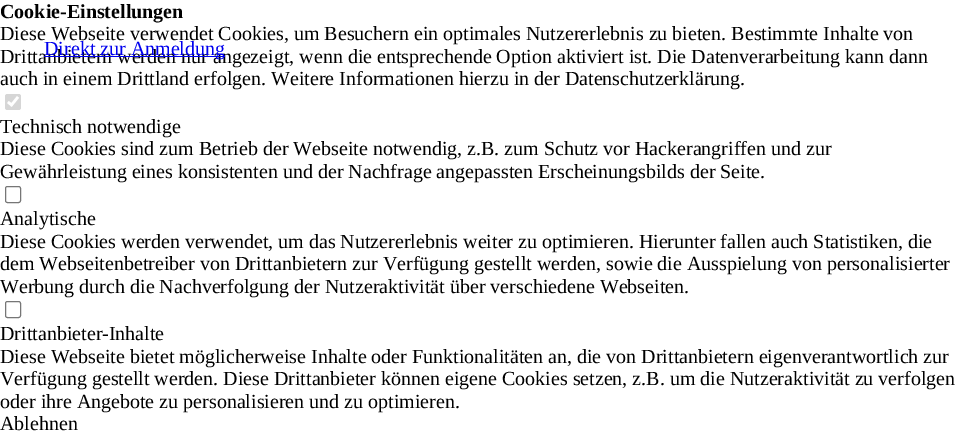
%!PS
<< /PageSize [956 438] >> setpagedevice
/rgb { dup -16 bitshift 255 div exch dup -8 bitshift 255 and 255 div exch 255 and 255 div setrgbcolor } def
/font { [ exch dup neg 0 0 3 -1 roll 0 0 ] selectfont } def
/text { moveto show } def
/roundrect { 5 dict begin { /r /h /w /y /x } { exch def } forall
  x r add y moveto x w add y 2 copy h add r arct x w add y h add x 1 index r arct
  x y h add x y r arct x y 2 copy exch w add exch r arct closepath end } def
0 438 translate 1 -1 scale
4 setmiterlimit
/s1 { /LiberationSerif-Bold 20 font 16#000000 rgb } def
/s2 { /LiberationSerif-Regular 20 font 16#000000 rgb } def
/s3 { /LiberationSerif-Regular 20 font 16#0000EE rgb } def
16#FFFFFF rgb
0 0 956 438 rectfill
s1
(Cookie-Einstellungen) 0 18 text
s2
(Diese Webseite verwendet Cookies, um Besuchern ein optimales Nutzererlebnis zu bieten. Bestimmte Inhalte von) 0 40 text
(Drittanbietern werden nur angezeigt, wenn die entsprechende Option aktiviert ist. Die Datenverarbeitung kann dann) 0 63 text
(auch in einem Drittland erfolgen. Weitere Informationen hierzu in der Datenschutzerklärung.) 0 85 text
16#D6D6D6 rgb
5 94 16 16 2.5 roundrect fill
16#FFFFFF rgb
2.6 setlinewidth
8 102 moveto 11.5 105 lineto 18 97 lineto stroke
s2
(Technisch notwendige) 0 133 text
(Diese Cookies sind zum Betrieb der Webseite notwendig, z.B. zum Schutz vor Hackerangriffen und zur) 0 155 text
(Gewährleistung eines konsistenten und der Nachfrage angepassten Erscheinungsbilds der Seite.) 0 178 text
16#767676 rgb
1 setlinewidth
5.5 186.5 15 16 2 roundrect stroke
s2
(Analytische) 0 225 text
(Diese Cookies werden verwendet, um das Nutzererlebnis weiter zu optimieren. Hierunter fallen auch Statistiken, die) 0 248 text
(dem Webseitenbetreiber von Drittanbietern zur Verfügung gestellt werden, sowie die Ausspielung von personalisierter) 0 270 text
(Werbung durch die Nachverfolgung der Nutzeraktivität über verschiedene Webseiten.) 0 293 text
16#767676 rgb
5.5 301.5 15 16 2 roundrect stroke
s2
(Drittanbieter-Inhalte) 0 340 text
(Diese Webseite bietet möglicherweise Inhalte oder Funktionalitäten an, die von Drittanbietern eigenverantwortlich zur) 0 363 text
(Verfügung gestellt werden. Diese Drittanbieter können eigene Cookies setzen, z.B. um die Nutzeraktivität zu verfolgen) 0 385 text
(oder ihre Angebote zu personalisieren und zu optimieren.) 0 408 text
(Ablehnen) 0 430 text
16#0000EE rgb
44 56 181 1 rectfill
(Direkt zur Anmeldung) 44 55 text
showpage
